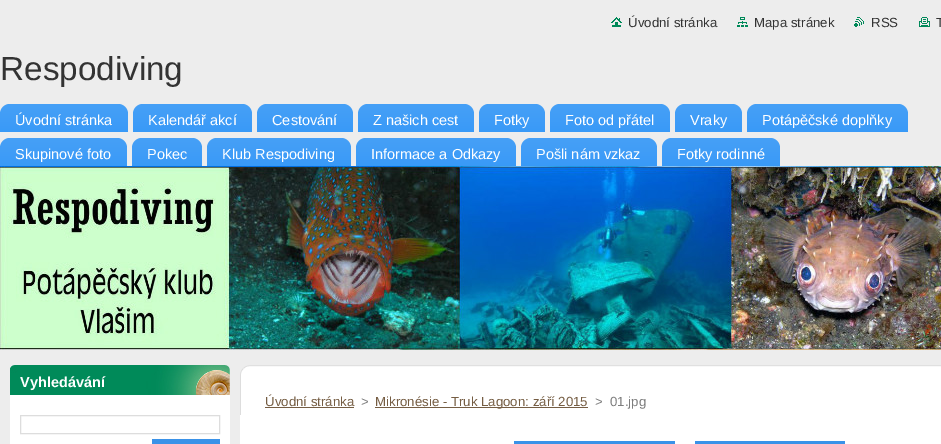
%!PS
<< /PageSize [941 444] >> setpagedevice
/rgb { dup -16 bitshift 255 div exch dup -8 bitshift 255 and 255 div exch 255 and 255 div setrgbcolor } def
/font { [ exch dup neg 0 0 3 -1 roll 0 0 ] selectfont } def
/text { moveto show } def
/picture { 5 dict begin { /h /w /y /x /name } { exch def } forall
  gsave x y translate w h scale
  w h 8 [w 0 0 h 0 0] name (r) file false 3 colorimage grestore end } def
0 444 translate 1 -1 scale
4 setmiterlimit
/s1 { /LiberationSans-Regular 13.25 font 16#333333 rgb } def
/s2 { /LiberationSans-Regular 33.25 font 16#333333 rgb } def
/s3 { /LiberationSans-Regular 14.5 font 16#FFFFFF rgb } def
/s4 { /LiberationSans-Bold 14.5 font 16#FFFFFF rgb } def
/s5 { /LiberationSans-Regular 13.25 font 16#755D43 rgb } def
/s6 { /LiberationSans-Regular 13.25 font 16#7D7D7D rgb } def
16#EDEDED rgb
0 0 941 444 rectfill
(pic1.raw) 611 17 11 10 picture
s1
(Úvodní stránka) 628 27 text
(pic2.raw) 737 17 11 10 picture
(Mapa stránek) 754 27 text
(pic3.raw) 854 17 10 10 picture
(RSS) 871 27 text
(pic4.raw) 919 17 11 10 picture
(T) 936 27 text
s2
(Respodiving) 0 80 text
(pic5.raw) 0 104 128 28 picture
(pic6.raw) 0 104 8 8 picture
(pic7.raw) 120 104 8 8 picture
s3
(Úvodní stránka) 15 125 text
(pic8.raw) 133 104 119 28 picture
(pic6.raw) 133 104 8 8 picture
(pic7.raw) 244 104 8 8 picture
(Kalendář akcí) 148 125 text
(pic9.raw) 257 104 96 28 picture
(pic6.raw) 257 104 8 8 picture
(pic7.raw) 345 104 8 8 picture
(Cestování) 272 125 text
(pic10.raw) 358 104 116 28 picture
(pic6.raw) 358 104 8 8 picture
(pic7.raw) 466 104 8 8 picture
(Z našich cest) 373 125 text
(pic11.raw) 479 104 66 28 picture
(pic6.raw) 479 104 8 8 picture
(pic7.raw) 537 104 8 8 picture
(Fotky) 494 125 text
(pic12.raw) 550 104 120 28 picture
(pic6.raw) 550 104 8 8 picture
(pic7.raw) 662 104 8 8 picture
(Foto od přátel) 565 125 text
(pic13.raw) 675 104 67 28 picture
(pic6.raw) 675 104 8 8 picture
(pic7.raw) 734 104 8 8 picture
(Vraky) 690 125 text
(pic14.raw) 747 104 161 28 picture
(pic6.raw) 747 104 8 8 picture
(pic7.raw) 900 104 8 8 picture
(Potápěčské doplňky) 762 125 text
(pic15.raw) 0 138 127 28 picture
(pic6.raw) 0 138 8 8 picture
(pic7.raw) 119 138 8 8 picture
(Skupinové foto) 15 159 text
(pic16.raw) 132 138 70 28 picture
(pic6.raw) 132 138 8 8 picture
(pic7.raw) 194 138 8 8 picture
(Pokec) 147 159 text
(pic17.raw) 207 138 144 28 picture
(pic6.raw) 207 138 8 8 picture
(pic7.raw) 343 138 8 8 picture
(Klub Respodiving) 222 159 text
(pic18.raw) 356 138 160 28 picture
(pic6.raw) 356 138 8 8 picture
(pic7.raw) 508 138 8 8 picture
(Informace a Odkazy) 371 159 text
(pic19.raw) 521 138 136 28 picture
(pic6.raw) 521 138 8 8 picture
(pic7.raw) 649 138 8 8 picture
(Pošli nám vzkaz) 536 159 text
(pic20.raw) 662 138 118 28 picture
(pic6.raw) 662 138 8 8 picture
(pic7.raw) 772 138 8 8 picture
(Fotky rodinné) 677 159 text
(pic21.raw) 0 166 941 184 picture
10 395 220 49 rectfill
(pic22.raw) 10 365 220 30 picture
s4
(Vyhledávání) 20 387 text
16#DDDDDD rgb
20.5 415.5 199 18 rectstroke
16#3A92E8 rgb
152 439 68 5 rectfill
(pic23.raw) 240 365 701 50 picture
16#FFFFFF rgb
240 415 701 29 rectfill
s5
(Úvodní stránka) 265 406 text
265 407 89 1 rectfill
s6
(>) 361 406 text
16#755D43 rgb
375 407 213 1 rectfill
(Mikronésie - Truk Lagoon: září 2015) 375 406 text
s6
(>) 595 406 text
(01.jpg) 610 406 text
16#3A92E8 rgb
514 441 161 3 rectfill
695 441 150 3 rectfill
showpage
